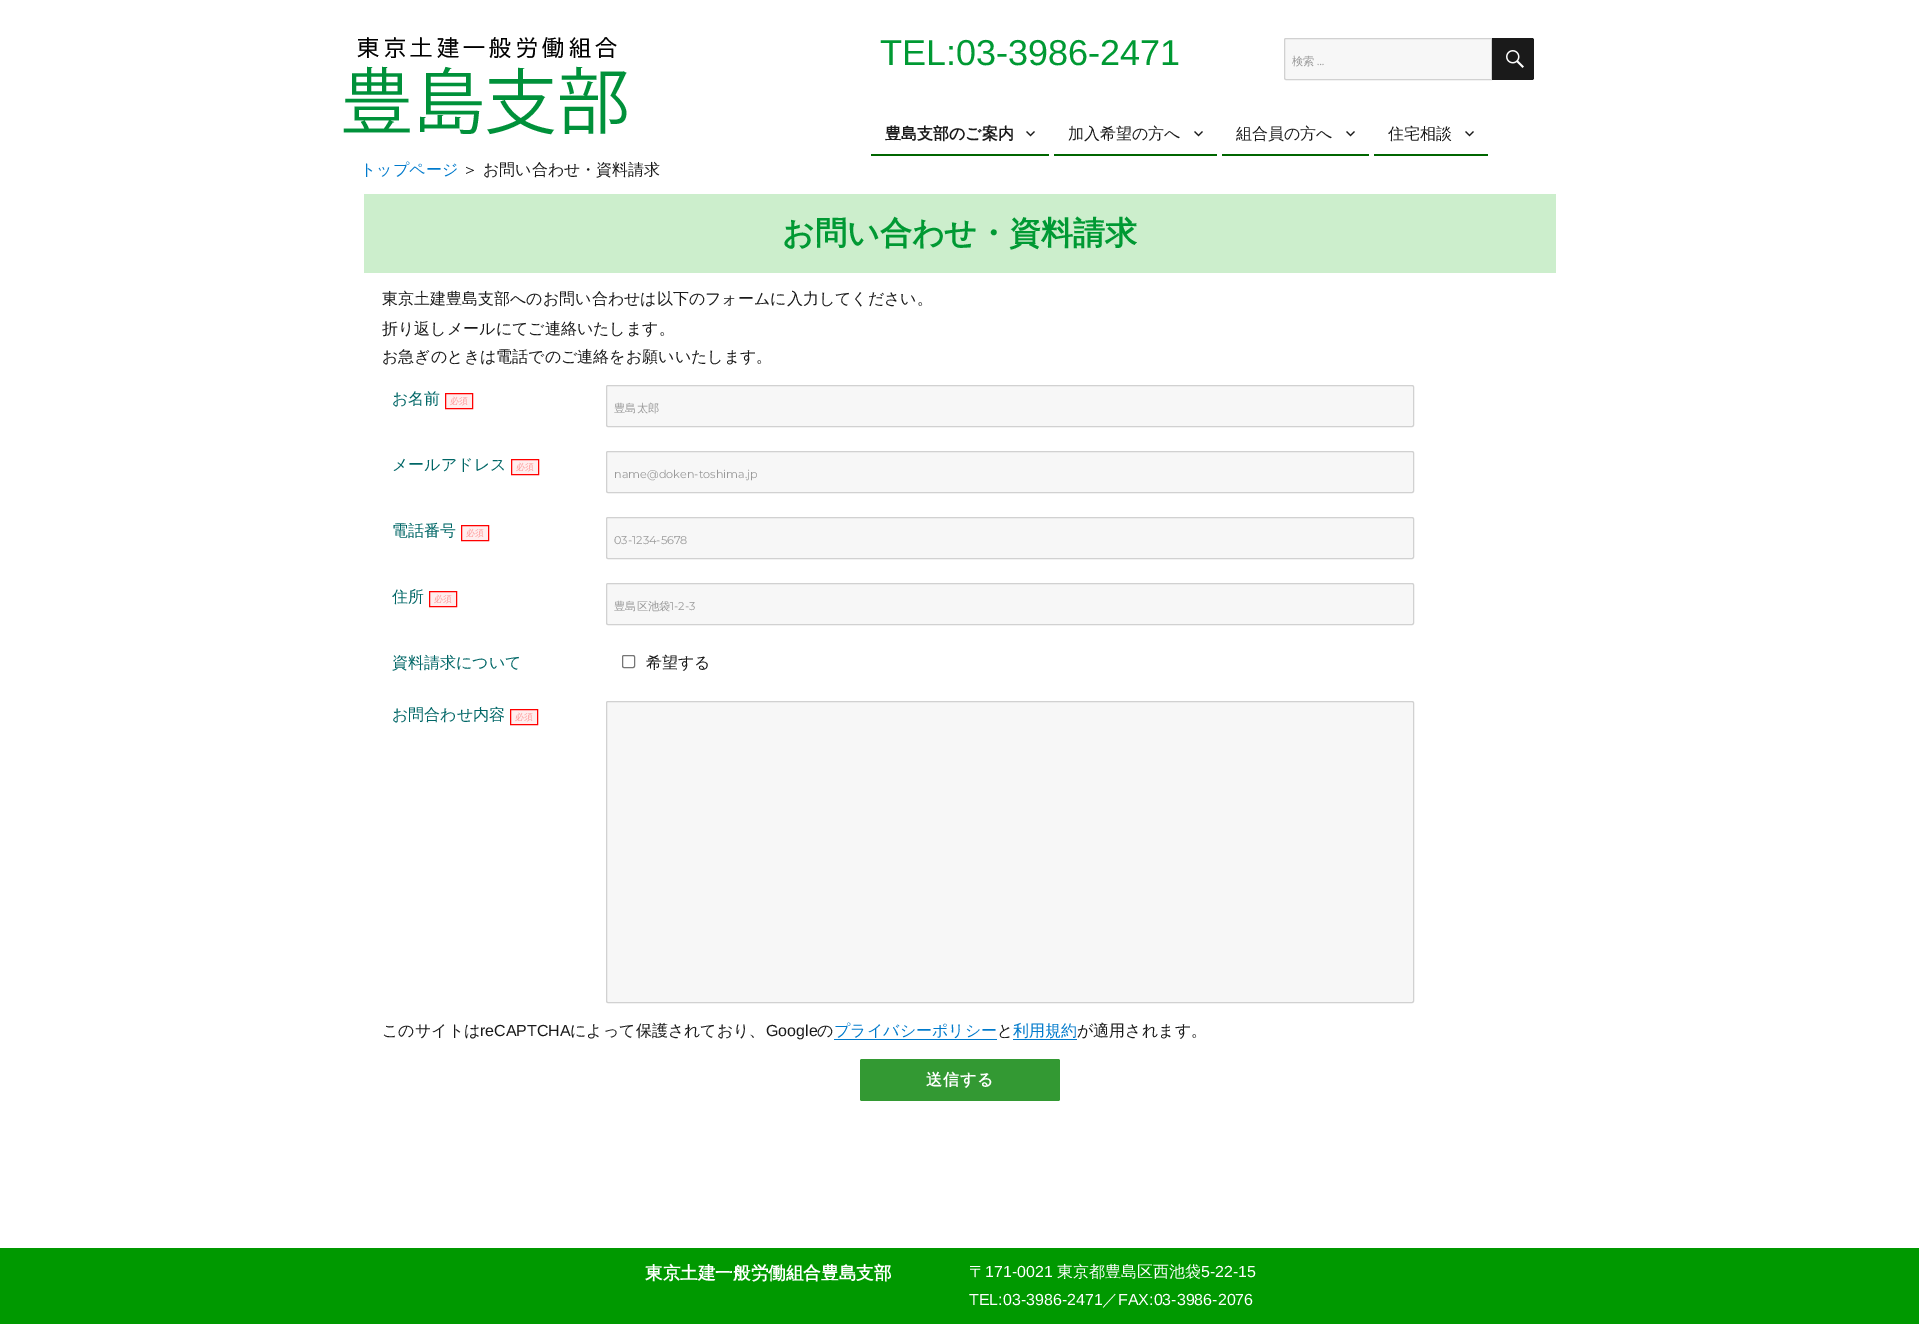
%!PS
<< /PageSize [1919 1343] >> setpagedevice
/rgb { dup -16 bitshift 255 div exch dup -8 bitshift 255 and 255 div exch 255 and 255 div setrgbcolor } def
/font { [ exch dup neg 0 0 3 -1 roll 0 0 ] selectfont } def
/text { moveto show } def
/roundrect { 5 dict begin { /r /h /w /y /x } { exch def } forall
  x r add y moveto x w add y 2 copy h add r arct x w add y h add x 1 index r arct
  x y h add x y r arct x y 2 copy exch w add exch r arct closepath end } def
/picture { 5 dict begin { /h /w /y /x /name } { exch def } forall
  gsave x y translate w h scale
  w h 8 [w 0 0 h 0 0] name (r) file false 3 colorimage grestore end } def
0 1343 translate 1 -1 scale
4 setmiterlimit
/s1 { /LiberationSans-Regular 36 font 16#009933 rgb } def
/s2 { /WenQuanYiZenHei-Medium 11.25 font 16#999999 rgb } def
/s3 { /Montserrat-Thin 11.25 font 16#999999 rgb } def
/s4 { /WenQuanYiZenHei-Bold 16 font 16#1A1A1A rgb } def
/s5 { /WenQuanYiZenHei-Medium 16 font 16#1A1A1A rgb } def
/s6 { /WenQuanYiZenHei-Medium 16 font 16#007ACC rgb } def
/s7 { /WenQuanYiZenHei-Bold 32 font 16#009933 rgb } def
/s8 { /WenQuanYiZenHei-Medium 16 font 16#006666 rgb } def
/s9 { /WenQuanYiZenHei-Medium 9 font 16#FF9999 rgb } def
/s10 { /LiberationSans-Regular 16 font 16#1A1A1A rgb } def
/s11 { /WenQuanYiZenHei-Bold 17.6 font 16#FFFFFF rgb } def
/s12 { /WenQuanYiZenHei-Medium 16 font 16#FFFFFF rgb } def
/s13 { /LiberationSans-Regular 16 font 16#FFFFFF rgb } def
16#FFFFFF rgb
0 0 1919 1343 rectfill
(pic1.raw) 343 37 284 98 picture
s1
(TEL:03-3986-2471) 880 65 text
16#F7F7F7 rgb
1286 38.5 moveto 1491.5 38.5 lineto 1491.5 79.5 lineto 1286 79.5 lineto 1285 79.5 1284.5 79 1284.5 78 curveto 1284.5 40 lineto 1284.5 39 1285 38.5 1286 38.5 curveto closepath gsave fill grestore
16#D1D1D1 rgb
stroke
s2
(検索) 1292 65 text
s3
(…) 1317 65 text
16#1A1A1A rgb
1492 38 moveto 1532 38 lineto 1533 38 1534 39 1534 40 curveto 1534 78 lineto 1534 79 1533 80 1532 80 curveto 1492 80 lineto closepath fill
(pic2.raw) 1506 50 18 18 picture
16#006600 rgb
871 154 178 2 rectfill
s4
(豊島支部のご案内) 885 139 text
(pic3.raw) 1026 131 9 6 picture
16#006600 rgb
1054 154 163 2 rectfill
s5
(加入希望の方へ) 1068 139 text
(pic3.raw) 1194 131 9 6 picture
16#006600 rgb
1222 154 147 2 rectfill
s5
(組合員の方へ) 1236 139 text
(pic3.raw) 1346 131 9 6 picture
16#006600 rgb
1374 154 114 2 rectfill
s5
(住宅相談) 1388 139 text
(pic3.raw) 1465 131 9 6 picture
s6
(トップページ) 360 175 text
s5
(＞ お問い合わせ・資料請求) 462 175 text
16#CCEECC rgb
364 194 1192 79 rectfill
s7
(お問い合わせ・資料請求) 782 244 text
s5
(東京土建豊島支部へのお問い合わせは以下のフォームに入力してください。) 382 304 text
(折り返しメールにてご連絡いたします。) 382 334 text
(お急ぎのときは電話でのご連絡をお願いいたします。) 382 362 text
s8
(お名前) 392 404 text
16#FFEEEE rgb
445.5 393.5 moveto 472.5 393.5 lineto 472.5 408.5 lineto 445.5 408.5 lineto closepath gsave fill grestore
16#FF0000 rgb
stroke
s9
(必須) 450 404 text
16#F7F7F7 rgb
606.5 385.5 807 41 1.5 roundrect gsave fill grestore
16#D1D1D1 rgb
stroke
s2
(豊島太郎) 614 412 text
s8
(メールアドレス) 392 470 text
16#FFEEEE rgb
511.5 459.5 moveto 538.5 459.5 lineto 538.5 474.5 lineto 511.5 474.5 lineto closepath gsave fill grestore
16#FF0000 rgb
stroke
s9
(必須) 516 470 text
16#F7F7F7 rgb
606.5 451.5 807 41 1.5 roundrect gsave fill grestore
16#D1D1D1 rgb
stroke
s3
(name@doken-toshima.jp) 614 478 text
s8
(電話番号) 392 536 text
16#FFEEEE rgb
461.5 525.5 moveto 488.5 525.5 lineto 488.5 540.5 lineto 461.5 540.5 lineto closepath gsave fill grestore
16#FF0000 rgb
stroke
s9
(必須) 466 536 text
16#F7F7F7 rgb
606.5 517.5 807 41 1.5 roundrect gsave fill grestore
16#D1D1D1 rgb
stroke
s3
(03-1234-5678) 614 544 text
s8
(住所) 392 602 text
16#FFEEEE rgb
429.5 591.5 moveto 456.5 591.5 lineto 456.5 606.5 lineto 429.5 606.5 lineto closepath gsave fill grestore
16#FF0000 rgb
stroke
s9
(必須) 434 602 text
16#F7F7F7 rgb
606.5 583.5 807 41 1.5 roundrect gsave fill grestore
16#D1D1D1 rgb
stroke
s2
(豊島区池袋) 614 610 text
s3
(1-2-3) 670 610 text
s8
(資料請求について) 392 668 text
16#767676 rgb
622.5 655.5 12 12 1.5 roundrect stroke
s5
(希望する) 646 668 text
s8
(お問合わせ内容) 392 720 text
16#FFEEEE rgb
510.5 709.5 moveto 537.5 709.5 lineto 537.5 724.5 lineto 510.5 724.5 lineto closepath gsave fill grestore
16#FF0000 rgb
stroke
s9
(必須) 515 720 text
16#F7F7F7 rgb
606.5 701.5 807 301 1.5 roundrect gsave fill grestore
16#D1D1D1 rgb
stroke
s5
(このサイトは) 382 1036 text
s10
(reCAPTCHA) 480 1036 text
s5
(によって保護されており、) 570 1036 text
s10
(Google) 766 1036 text
s5
(の) 817 1036 text
s6
(プライバシーポリシー) 834 1036 text
834 1039 163 1 rectfill
s5
(と) 997 1036 text
s6
(利用規約) 1013 1036 text
1013 1039 64 1 rectfill
s5
(が適用されます。) 1077 1036 text
16#339933 rgb
860 1059 200 42 2 roundrect fill
/WenQuanYiZenHei-Bold 16 font
16#FFFFFF rgb
926 1085 moveto 1 0 (送信する) ashow
16#009900 rgb
0 1248 1919 76 rectfill
s11
(東京土建一般労働組合豊島支部) 645 1279 text
s12
(〒) 969 1277 text
s13
(171-0021) 985 1277 text
s12
(東京都豊島区西池袋) 1057 1277 text
s13
(5-22-15) 1201 1277 text
(TEL:03-3986-2471) 969 1305 text
s12
(／) 1102 1305 text
s13
(FAX:03-3986-2076) 1118 1305 text
showpage
